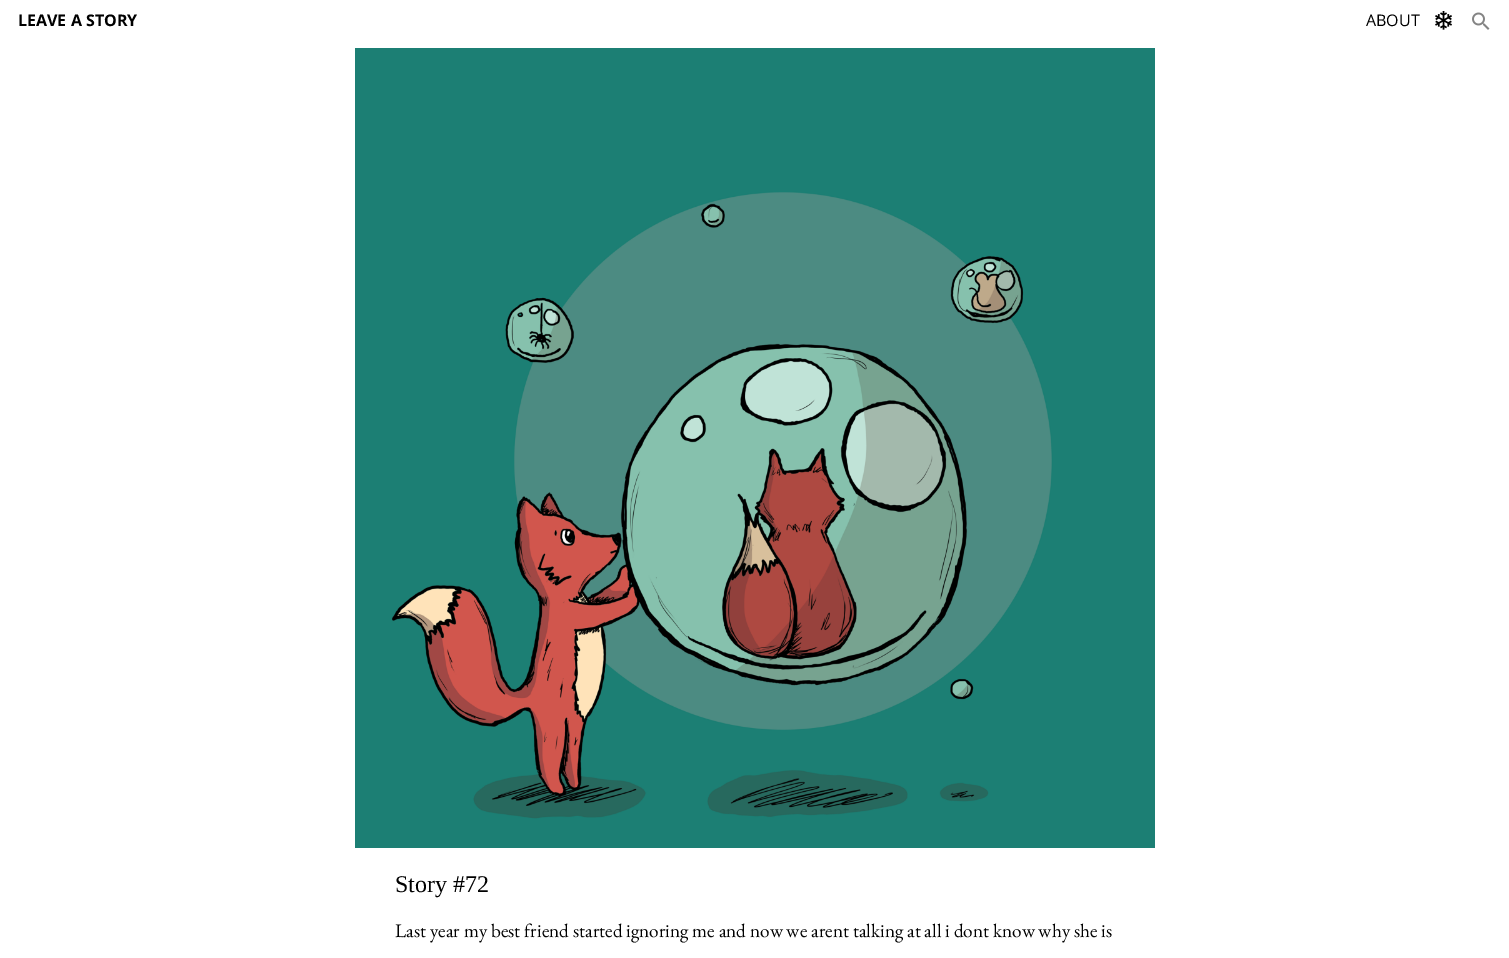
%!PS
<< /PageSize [1509 958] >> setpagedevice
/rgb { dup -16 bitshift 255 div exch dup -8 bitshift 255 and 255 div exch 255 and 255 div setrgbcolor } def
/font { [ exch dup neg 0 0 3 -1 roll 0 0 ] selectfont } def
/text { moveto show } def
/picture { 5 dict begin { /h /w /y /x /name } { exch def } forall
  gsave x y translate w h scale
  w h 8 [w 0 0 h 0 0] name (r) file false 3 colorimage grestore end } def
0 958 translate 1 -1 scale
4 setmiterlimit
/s1 { /OpenSans-Bold 16 font 16#000000 rgb } def
/s2 { /OpenSans-Regular 16 font 16#000000 rgb } def
/s3 { /LiberationSerif-Regular 24 font 16#000000 rgb } def
/s4 { /EBGaramond-Regular 19.2 font 16#000000 rgb } def
16#FFFFFF rgb
0 0 1509 958 rectfill
s1
(LEAVE A STORY) 18 26 text
s2
(ABOUT) 1366 26 text
(pic1.raw) 1435 11 17 19 picture
(pic2.raw) 1472 12 18 18 picture
(pic3.raw) 355 48 800 800 picture
s3
(Story #72) 395 892 text
s4
(Last year my best friend started ignoring me and now we arent talking at all i dont know why she is) 395 937 text
showpage
